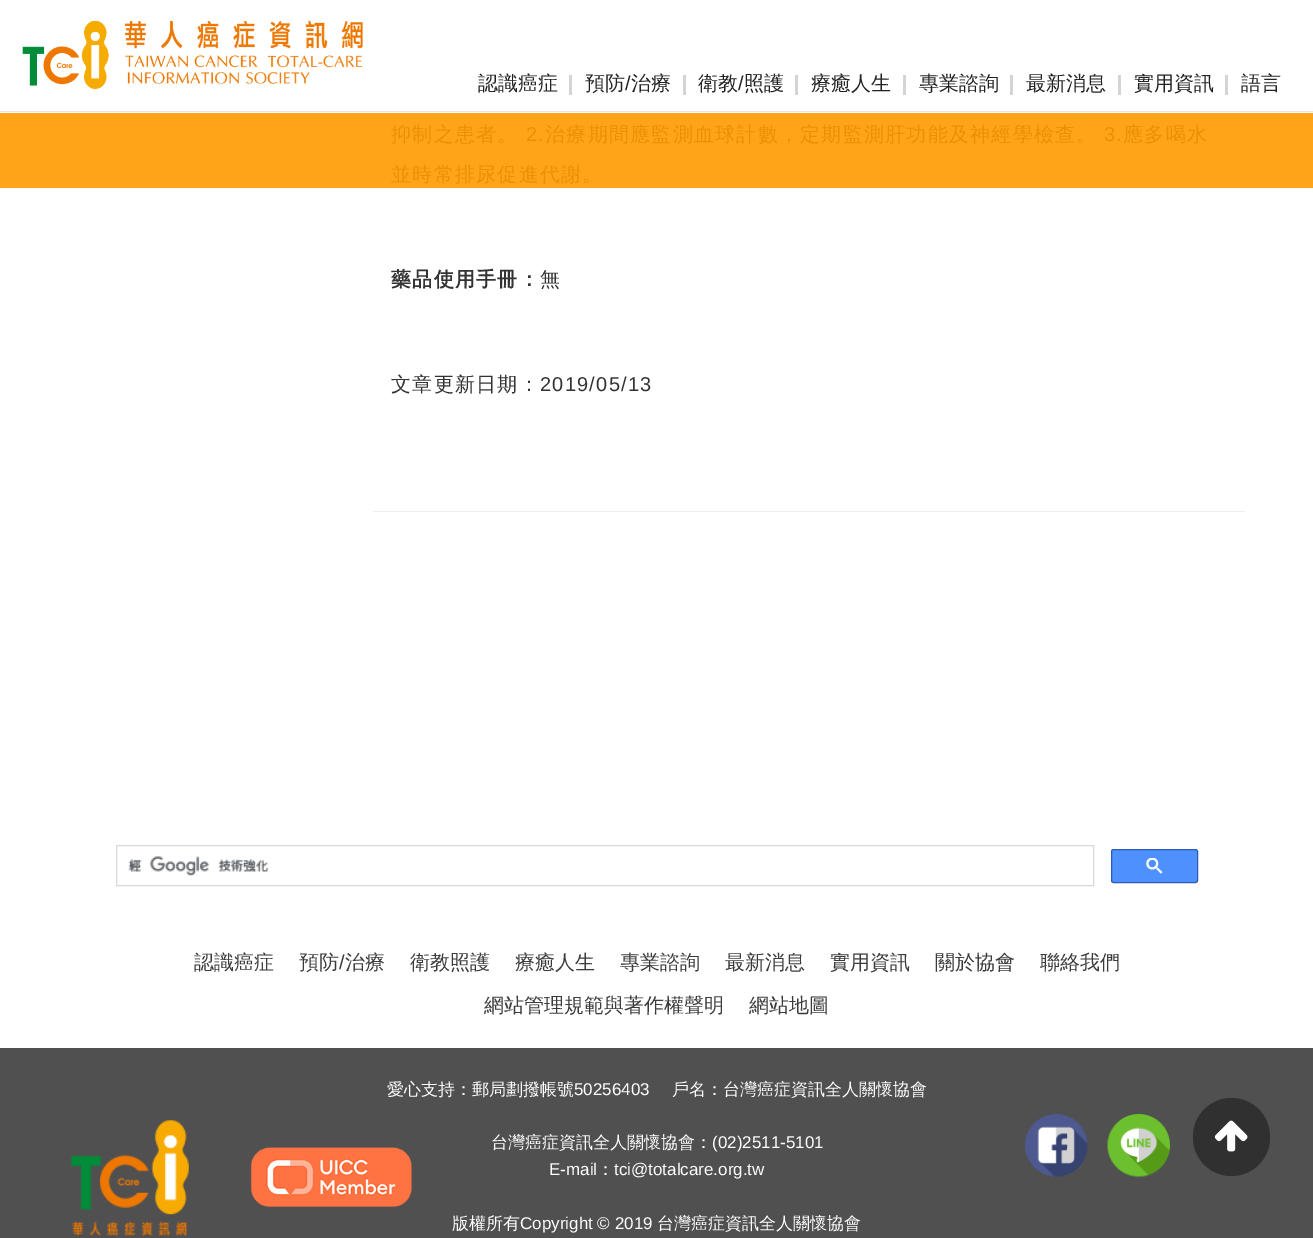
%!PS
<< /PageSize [1313 1238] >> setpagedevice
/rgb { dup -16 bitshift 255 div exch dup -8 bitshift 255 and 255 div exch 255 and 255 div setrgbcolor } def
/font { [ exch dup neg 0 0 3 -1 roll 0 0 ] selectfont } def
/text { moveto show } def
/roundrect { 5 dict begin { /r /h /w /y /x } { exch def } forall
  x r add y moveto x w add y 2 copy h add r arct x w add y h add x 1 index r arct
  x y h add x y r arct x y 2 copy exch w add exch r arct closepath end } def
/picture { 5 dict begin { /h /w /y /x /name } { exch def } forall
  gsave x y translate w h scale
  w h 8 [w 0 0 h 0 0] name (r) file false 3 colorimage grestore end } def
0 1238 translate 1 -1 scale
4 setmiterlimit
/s1 { /WenQuanYiZenHei-Medium 20 font 16#222222 rgb } def
/s2 { /LiberationSans-Regular 20 font 16#222222 rgb } def
/s3 { /WenQuanYiZenHei-Medium 20 font 16#3B3B3B rgb } def
/s4 { /LiberationSans-Regular 20 font 16#3B3B3B rgb } def
/s5 { /WenQuanYiZenHei-Medium 17 font 16#FFFFFF rgb } def
/s6 { /LiberationSans-Regular 17 font 16#FFFFFF rgb } def
16#FFFFFF rgb
0 0 1313 1238 rectfill
16#FFA319 rgb
0 113 1313 75 rectfill
(pic1.raw) 22 20 341 70 picture
16#E7E7E7 rgb
0 111 1313 1 rectfill
s1
(認識癌症) 478 90 text
16#D4D4D4 rgb
569 75 3 20 rectfill
s1
(預防) 585 90 text
s2
(/) 625 90 text
s1
(治療) 631 90 text
16#D4D4D4 rgb
683 75 3 20 rectfill
s1
(衛教) 698 90 text
s2
(/) 738 90 text
s1
(照護) 744 90 text
16#D4D4D4 rgb
795 75 3 20 rectfill
s1
(療癒人生) 811 90 text
16#D4D4D4 rgb
903 75 3 20 rectfill
s1
(專業諮詢) 919 90 text
16#D4D4D4 rgb
1010 75 3 20 rectfill
s1
(最新消息) 1026 90 text
16#D4D4D4 rgb
1118 75 3 20 rectfill
s1
(實用資訊) 1134 90 text
16#D4D4D4 rgb
1225 75 3 20 rectfill
s1
(語言) 1241 90 text
16#EB8F05 rgb
391 141 moveto 1.25 0 (抑制之患者。) ashow
/LiberationSans-Regular 20 font
526 141 moveto 1.25 0 (2.) ashow
/WenQuanYiZenHei-Medium 20 font
545 141 moveto 1.25 0 (治療期間應監測血球計數，定期監測肝功能及神經學檢查。) ashow
/LiberationSans-Regular 20 font
1104 141 moveto 1.25 0 (3.) ashow
/WenQuanYiZenHei-Medium 20 font
1123 141 moveto 1.25 0 (應多喝水) ashow
391 181 moveto 1.25 0 (並時常排尿促進代謝。) ashow
/WenQuanYiZenHei-Bold 20 font
16#333333 rgb
391 286 moveto 1.25 0 (藥品使用手冊：) ashow
/WenQuanYiZenHei-Medium 20 font
540 286 moveto 1.25 0 (無) ashow
391 391 moveto 1.25 0 (文章更新日期：) ashow
/LiberationSans-Regular 20 font
540 391 moveto 1.25 0 (2019/05/13) ashow
16#EEEEEE rgb
373 511 872 1 rectfill
16#D9D9D9 rgb
116.5 845.5 977 40 rectstroke
(pic2.raw) 128 856 141 20 picture
16#4D90FE rgb
1111.5 849.5 86 33 2 roundrect gsave fill grestore
16#2F5BB7 rgb
stroke
(pic3.raw) 1146 858 17 16 picture
s3
(認識癌症) 194 969 text
(預防) 299 969 text
s4
(/) 339 969 text
s3
(治療) 345 969 text
(衛教照護) 410 969 text
(療癒人生) 515 969 text
(專業諮詢) 620 969 text
(最新消息) 725 969 text
(實用資訊) 830 969 text
(關於協會) 935 969 text
(聯絡我們) 1040 969 text
(網站管理規範與著作權聲明) 484 1012 text
(網站地圖) 749 1012 text
16#505050 rgb
0 1048 1313 190 rectfill
(pic4.raw) 71 1120 118 116 picture
(pic5.raw) 250 1147 162 60 picture
s5
(愛心支持：郵局劃撥帳號) 387 1095 text
s6
(50256403) 574 1095 text
s5
(戶名：台灣癌症資訊全人關懷協會) 672 1095 text
(台灣癌症資訊全人關懷協會：) 491 1148 text
s6
(\(02\)2511-5101) 712 1148 text
(E-mail) 549 1175 text
s5
(：) 597 1175 text
s6
(tci@totalcare.org.tw) 614 1175 text
s5
(版權所有) 452 1229 text
s6
(Copyright © 2019) 520 1229 text
s5
(台灣癌症資訊全人關懷協會) 657 1229 text
(pic6.raw) 1025 1114 63 63 picture
(pic7.raw) 1107 1114 63 63 picture
16#303030 rgb
1193 1098 77 78 38.5 roundrect fill
(pic8.raw) 1214 1120 34 32 picture
showpage
